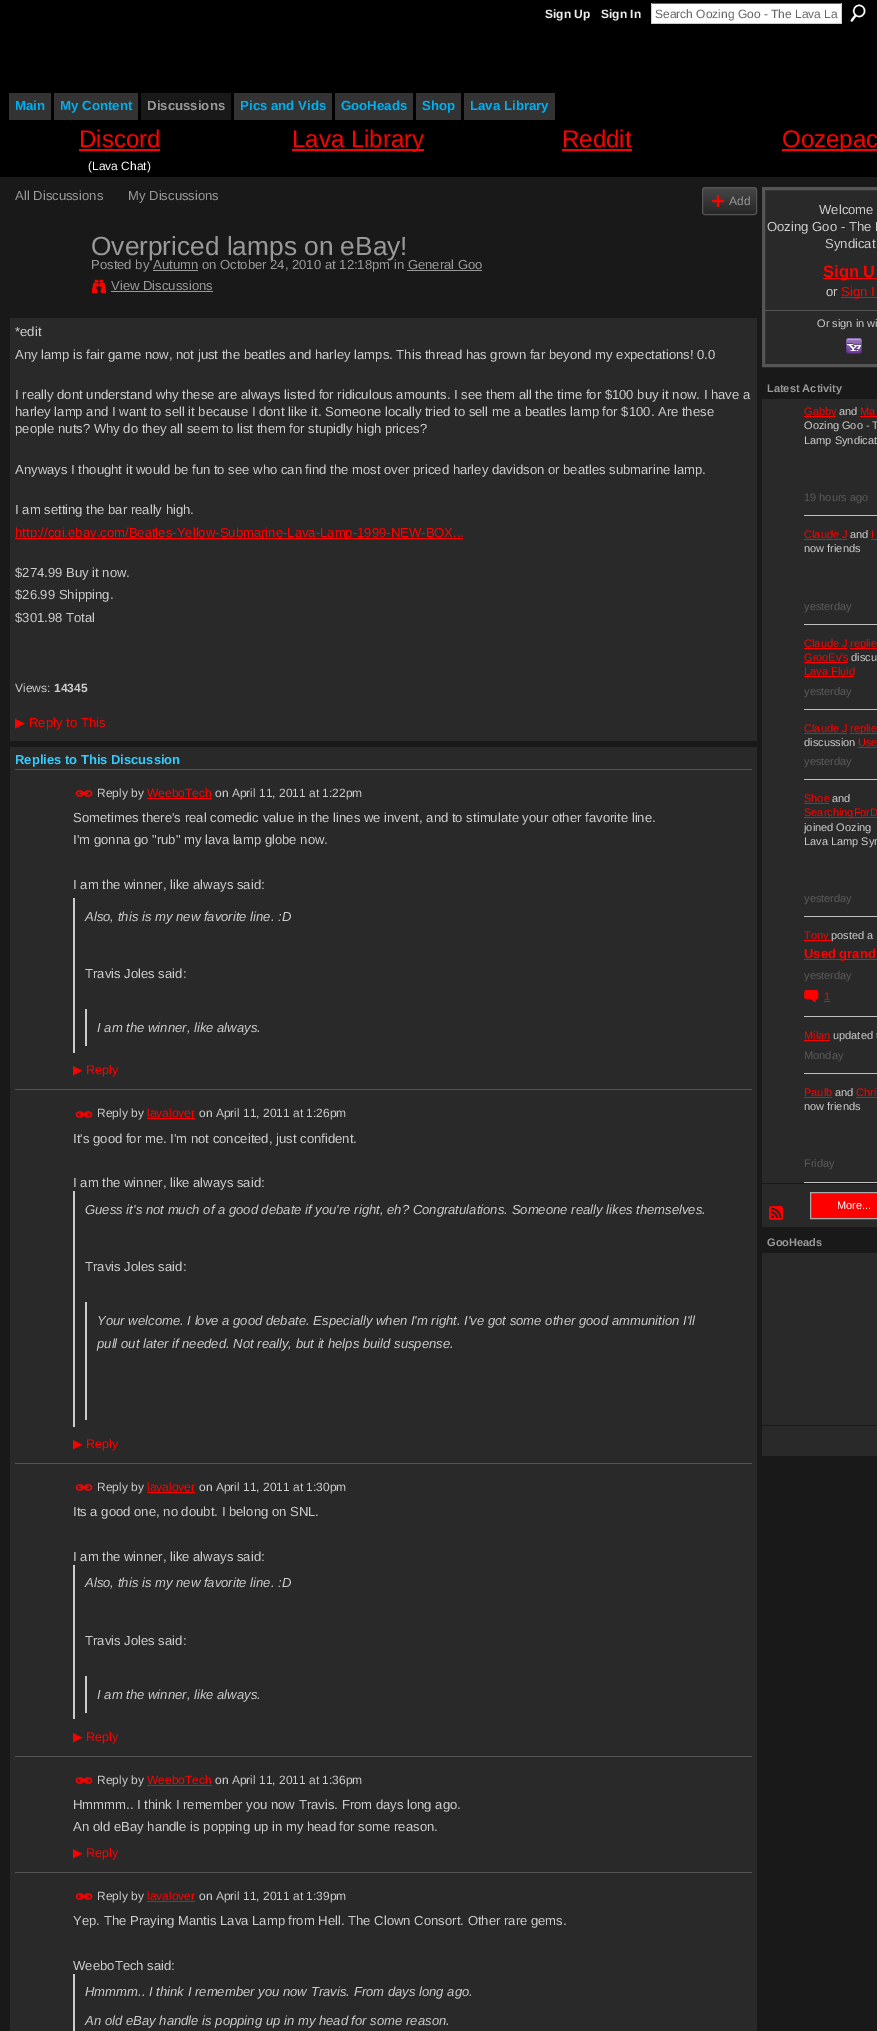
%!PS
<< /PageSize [877 2031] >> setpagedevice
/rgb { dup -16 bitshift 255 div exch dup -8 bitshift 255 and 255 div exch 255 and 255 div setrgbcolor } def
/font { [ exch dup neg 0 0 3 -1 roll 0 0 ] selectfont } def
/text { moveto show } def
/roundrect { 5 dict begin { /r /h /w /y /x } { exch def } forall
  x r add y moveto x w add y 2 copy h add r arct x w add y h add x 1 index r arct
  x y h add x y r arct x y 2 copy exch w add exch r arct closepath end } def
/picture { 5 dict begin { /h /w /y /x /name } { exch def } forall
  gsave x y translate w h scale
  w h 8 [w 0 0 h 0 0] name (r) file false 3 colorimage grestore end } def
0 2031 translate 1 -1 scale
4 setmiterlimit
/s1 { /LiberationSans-Bold 12 font 16#EEEEEE rgb } def
/s2 { /LiberationSans-Regular 12 font 16#666666 rgb } def
/s3 { /LiberationSans-Bold 13.25 font 16#01AFEF rgb } def
/s4 { /LiberationSans-Bold 13.25 font 16#999999 rgb } def
/s5 { /LiberationSans-Regular 24 font 16#FF0000 rgb } def
/s6 { /LiberationSans-Regular 12 font 16#FFFFFF rgb } def
/s7 { /LiberationSans-Regular 13.1 font 16#999999 rgb } def
/s8 { /LiberationSans-Regular 12 font 16#999999 rgb } def
/s9 { /LiberationSans-Regular 26.25 font 16#999999 rgb } def
/s10 { /LiberationSans-Regular 13.1 font 16#CCCCCC rgb } def
/s11 { /LiberationSans-Regular 13.1 font 16#FF0000 rgb } def
/s12 { /LiberationSans-Regular 12 font 16#CCCCCC rgb } def
/s13 { /LiberationSans-Bold 12 font 16#CCCCCC rgb } def
/s14 { /DejaVuSans-Regular 13.1 font 16#FF0000 rgb } def
/s15 { /LiberationSans-Bold 13 font 16#33CCFF rgb } def
/s16 { /LiberationSans-Regular 12 font 16#FF0000 rgb } def
/s17 { /LiberationSans-Italic 13.1 font 16#CCCCCC rgb } def
/s18 { /DejaVuSans-Regular 12.5 font 16#FF0000 rgb } def
/s19 { /LiberationSans-Regular 12.5 font 16#FF0000 rgb } def
/s20 { /LiberationSans-Bold 16.5 font 16#FF0000 rgb } def
/s21 { /LiberationSans-Regular 11 font 16#CCCCCC rgb } def
/s22 { /LiberationSans-Bold 11 font 16#999999 rgb } def
/s23 { /LiberationSans-Regular 11 font 16#FF0000 rgb } def
/s24 { /LiberationSans-Regular 11 font 16#5A5A5A rgb } def
/s25 { /LiberationSans-Bold 13 font 16#FF0000 rgb } def
/s26 { /LiberationSans-Regular 11 font 16#FFFFFF rgb } def
16#000000 rgb
0 0 877 2031 rectfill
s1
(Sign Up) 545 18 text
(Sign In) 601 18 text
16#FFFFFF rgb
652 4 189 19 rectfill
16#666666 rgb
651 3 191 1 rectfill
16#CCCCCC rgb
841 3 1 21 rectfill
651 23 191 1 rectfill
651 3 1 21 rectfill
s2
(Search Oozing Goo - The Lava La) 655 18 text
(pic1.raw) 850 4 16 18 picture
16#333333 rgb
9 93 42 27 rectfill
s3
(Main) 15 110 text
16#333333 rgb
54 93 84 27 rectfill
s3
(My Content) 60 110 text
16#191919 rgb
141 93 90 27 rectfill
s4
(Discussions) 147 110 text
16#333333 rgb
234 93 98 27 rectfill
s3
(Pics and Vids) 240 110 text
16#333333 rgb
335 93 78 27 rectfill
s3
(GooHeads) 341 110 text
16#333333 rgb
416 93 45 27 rectfill
s3
(Shop) 422 110 text
16#333333 rgb
464 93 91 27 rectfill
s3
(Lava Library) 470 110 text
s5
(Discord) 79 147 text
79 149 81 2 rectfill
s6
(\(Lava Chat\)) 88 170 text
16#FF0000 rgb
292 149 132 2 rectfill
s5
(Lava Library) 292 147 text
(Reddit) 562 147 text
562 149 70 2 rectfill
782 149 95 2 rectfill
(Oozepac) 782 147 text
16#191919 rgb
0 177 877 1854 rectfill
s7
(All Discussions) 15 200 text
(My Discussions) 128 200 text
(pic2.raw) 702 188 55 27 picture
16#555555 rgb
702.5 187.5 54 27 2.5 roundrect stroke
(pic3.raw) 712 195 12 12 picture
s8
(Add) 729 205 text
s9
(Overpriced lamps on eBay!) 91 255 text
s7
(Posted by Autumn on October 24, 2010 at 12:18pm in General Goo) 91 269 text
153 270 45 1 rectfill
407 270 75 1 rectfill
(pic4.raw) 92 279 14 14 picture
(View Discussions) 111 290 text
111 291 102 1 rectfill
16#292929 rgb
10 318 747 423 rectfill
s10
(*edit) 15 336 text
(Any lamp is fair game now, not just the beatles and harley lamps. This thread has grown far beyond my expectations! 0.0) 15 359 text
(I really dont understand why these are always listed for ridiculous amounts. I see them all the time for $100 buy it now. I have a) 15 399 text
(harley lamp and I want to sell it because I dont like it. Someone locally tried to sell me a beatles lamp for $100. Are these) 15 416 text
(people nuts? Why do they all seem to list them for stupidly high prices?) 15 433 text
(Anyways I thought it would be fun to see who can find the most over priced harley davidson or beatles submarine lamp.) 15 474 text
(I am setting the bar really high.) 15 514 text
16#FF0000 rgb
15 538 448 1 rectfill
(http://cgi.ebay.com/Beatles-Yellow-Submarine-Lava-Lamp-1999-NEW-BOX...) 15 537 text
s10
($274.99 Buy it now.) 15 577 text
($26.99 Shipping.) 15 599 text
($301.98 Total) 15 622 text
s12
(Views:) 15 692 text
s13
(14345) 54 692 text
s14
(▶) 15 727 text
s11
(Reply to This) 29 727 text
16#292929 rgb
10 747 747 1284 rectfill
s15
(Replies to This Discussion) 15 764 text
16#555555 rgb
15 769 737 1 rectfill
(pic5.raw) 75 790 18 7 picture
s12
(Reply by) 97 797 text
s16
(WeeboTech) 147 797 text
147 798 65 1 rectfill
s12
(on April 11, 2011 at 1:22pm) 215 797 text
s10
(Sometimes there's real comedic value in the lines we invent, and to stimulate your other favorite line.) 73 822 text
(I'm gonna go "rub" my lava lamp globe now.) 73 844 text
(I am the winner, like always said:) 73 889 text
73 898 2 155 rectfill
s17
(Also, this is my new favorite line. :D) 85 921 text
s10
(Travis Joles said:) 85 978 text
85 1009 2 37 rectfill
s17
(I am the winner, like always.) 97 1032 text
s18
(▶) 73 1074 text
s19
(Reply) 86 1074 text
16#555555 rgb
15 1089 737 1 rectfill
(pic5.raw) 75 1111 18 7 picture
s12
(Reply by) 97 1117 text
s16
(lavalover) 147 1117 text
147 1118 48 1 rectfill
s12
(on April 11, 2011 at 1:26pm) 199 1117 text
s10
(It's good for me. I'm not conceited, just confident.) 73 1143 text
(I am the winner, like always said:) 73 1187 text
73 1191 2 236 rectfill
s17
(Guess it's not much of a good debate if you're right, eh? Congratulations. Someone really likes themselves.) 85 1214 text
s10
(Travis Joles said:) 85 1271 text
85 1302 2 118 rectfill
s17
(Your welcome. I love a good debate. Especially when I'm right. I've got some other good ammunition I'll) 97 1325 text
(pull out later if needed. Not really, but it helps build suspense.) 97 1348 text
s18
(▶) 73 1448 text
s19
(Reply) 86 1448 text
16#555555 rgb
15 1463 737 1 rectfill
(pic5.raw) 75 1484 18 7 picture
s12
(Reply by) 97 1491 text
s16
(lavalover) 147 1491 text
147 1492 48 1 rectfill
s12
(on April 11, 2011 at 1:30pm) 199 1491 text
s10
(Its a good one, no doubt. I belong on SNL.) 73 1516 text
(I am the winner, like always said:) 73 1561 text
73 1565 2 154 rectfill
s17
(Also, this is my new favorite line. :D) 85 1587 text
s10
(Travis Joles said:) 85 1645 text
85 1676 2 37 rectfill
s17
(I am the winner, like always.) 97 1699 text
s18
(▶) 73 1741 text
s19
(Reply) 86 1741 text
16#555555 rgb
15 1756 737 1 rectfill
(pic5.raw) 75 1777 18 7 picture
s12
(Reply by) 97 1784 text
s16
(WeeboTech) 147 1784 text
147 1785 65 1 rectfill
s12
(on April 11, 2011 at 1:36pm) 215 1784 text
s10
(Hmmmm.. I think I remember you now Travis. From days long ago.) 73 1809 text
(An old eBay handle is popping up in my head for some reason.) 73 1831 text
s18
(▶) 73 1857 text
s19
(Reply) 86 1857 text
16#555555 rgb
15 1872 737 1 rectfill
(pic5.raw) 75 1893 18 7 picture
s12
(Reply by) 97 1900 text
s16
(lavalover) 147 1900 text
147 1901 48 1 rectfill
s12
(on April 11, 2011 at 1:39pm) 199 1900 text
s10
(Yep. The Praying Mantis Lava Lamp from Hell. The Clown Consort. Other rare gems.) 73 1925 text
(WeeboTech said:) 73 1970 text
73 1974 2 57 rectfill
s17
(Hmmmm.. I think I remember you now Travis. From days long ago.) 85 1996 text
(An old eBay handle is popping up in my head for some reason.) 85 2025 text
16#292929 rgb
763.5 188.5 moveto 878.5 188.5 lineto 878.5 365.5 lineto 763.5 365.5 lineto closepath gsave fill grestore
16#555555 rgb
3 setlinewidth
stroke
s10
(Welcome) 819 214 text
(Oozing Goo - The L) 767 231 text
(Syndicat) 825 248 text
16#FF0000 rgb
823 278 54 1 rectfill
s20
(Sign U) 823 277 text
s10
(or) 826 296 text
16#FF0000 rgb
841 297 36 1 rectfill
(Sign I) 841 296 text
16#555555 rgb
765 310 112 1 rectfill
s21
(Or sign in wi) 817 327 text
(pic6.raw) 846 338 16 16 picture
s22
(Latest Activity) 767 392 text
16#292929 rgb
762 399 115 784 rectfill
16#C0C0C0 rgb
804 515 73 1 rectfill
16#FF0000 rgb
804 416 32 1 rectfill
s23
(Gabby) 804 415 text
s21
(and) 839 415 text
s23
(Ma) 860 415 text
860 416 17 1 rectfill
s21
(Oozing Goo - T) 804 429 text
(Lamp Syndicat) 804 444 text
s24
(19 hours ago) 804 501 text
16#C0C0C0 rgb
804 624 73 1 rectfill
s23
(Claude J) 804 538 text
804 539 43 1 rectfill
s21
(and) 850 538 text
s23
(I) 871 538 text
871 539 6 1 rectfill
s21
(now friends) 804 552 text
s24
(yesterday) 804 610 text
16#C0C0C0 rgb
804 709 73 1 rectfill
s23
(Claude J) 804 647 text
804 648 43 1 rectfill
850 648 27 1 rectfill
(replie) 850 647 text
(GrooEv's) 804 661 text
804 662 44 1 rectfill
s21
(discu) 851 661 text
s23
(Lava Fluid) 804 675 text
804 676 50 1 rectfill
s24
(yesterday) 804 695 text
16#C0C0C0 rgb
804 779 73 1 rectfill
s23
(Claude J) 804 732 text
804 733 43 1 rectfill
850 733 27 1 rectfill
(replie) 850 732 text
s21
(discussion) 804 746 text
s23
(Use) 858 746 text
858 747 19 1 rectfill
s24
(yesterday) 804 765 text
16#C0C0C0 rgb
804 916 73 1 rectfill
s23
(Shoe) 804 802 text
804 803 25 1 rectfill
s21
(and) 832 802 text
16#FF0000 rgb
804 817 73 1 rectfill
(SearchingForD) 804 816 text
s21
(joined Oozing) 804 831 text
(Lava Lamp Syn) 804 845 text
s24
(yesterday) 804 902 text
16#C0C0C0 rgb
804 1016 73 1 rectfill
16#FF0000 rgb
804 940 27 1 rectfill
(Tony) 804 939 text
s21
(posted a) 831 939 text
16#FF0000 rgb
804 959 73 1 rectfill
s25
(Used grand) 804 958 text
s24
(yesterday) 804 979 text
(pic7.raw) 804 990 15 12 picture
s23
(1) 824 1000 text
824 1001 6 1 rectfill
16#C0C0C0 rgb
804 1073 73 1 rectfill
s23
(Milan) 804 1039 text
804 1040 26 1 rectfill
s21
(updated t) 833 1039 text
s24
(Monday) 804 1059 text
16#C0C0C0 rgb
804 1182 73 1 rectfill
s23
(Paulb) 804 1096 text
804 1097 28 1 rectfill
s21
(and) 835 1096 text
s23
(Chri) 856 1096 text
856 1097 21 1 rectfill
s21
(now friends) 804 1110 text
s24
(Friday) 804 1167 text
16#292929 rgb
762 1184 115 43 rectfill
(pic8.raw) 769 1206 14 14 picture
16#FF0000 rgb
810.5 1192.5 moveto 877.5 1192.5 lineto 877.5 1218.5 lineto 810.5 1218.5 lineto closepath gsave fill grestore
16#AAAAAA rgb
1 setlinewidth
stroke
s26
(More...) 837 1209 text
s22
(GooHeads) 767 1246 text
16#292929 rgb
762 1253 115 172 rectfill
762 1426 115 30 rectfill
showpage
